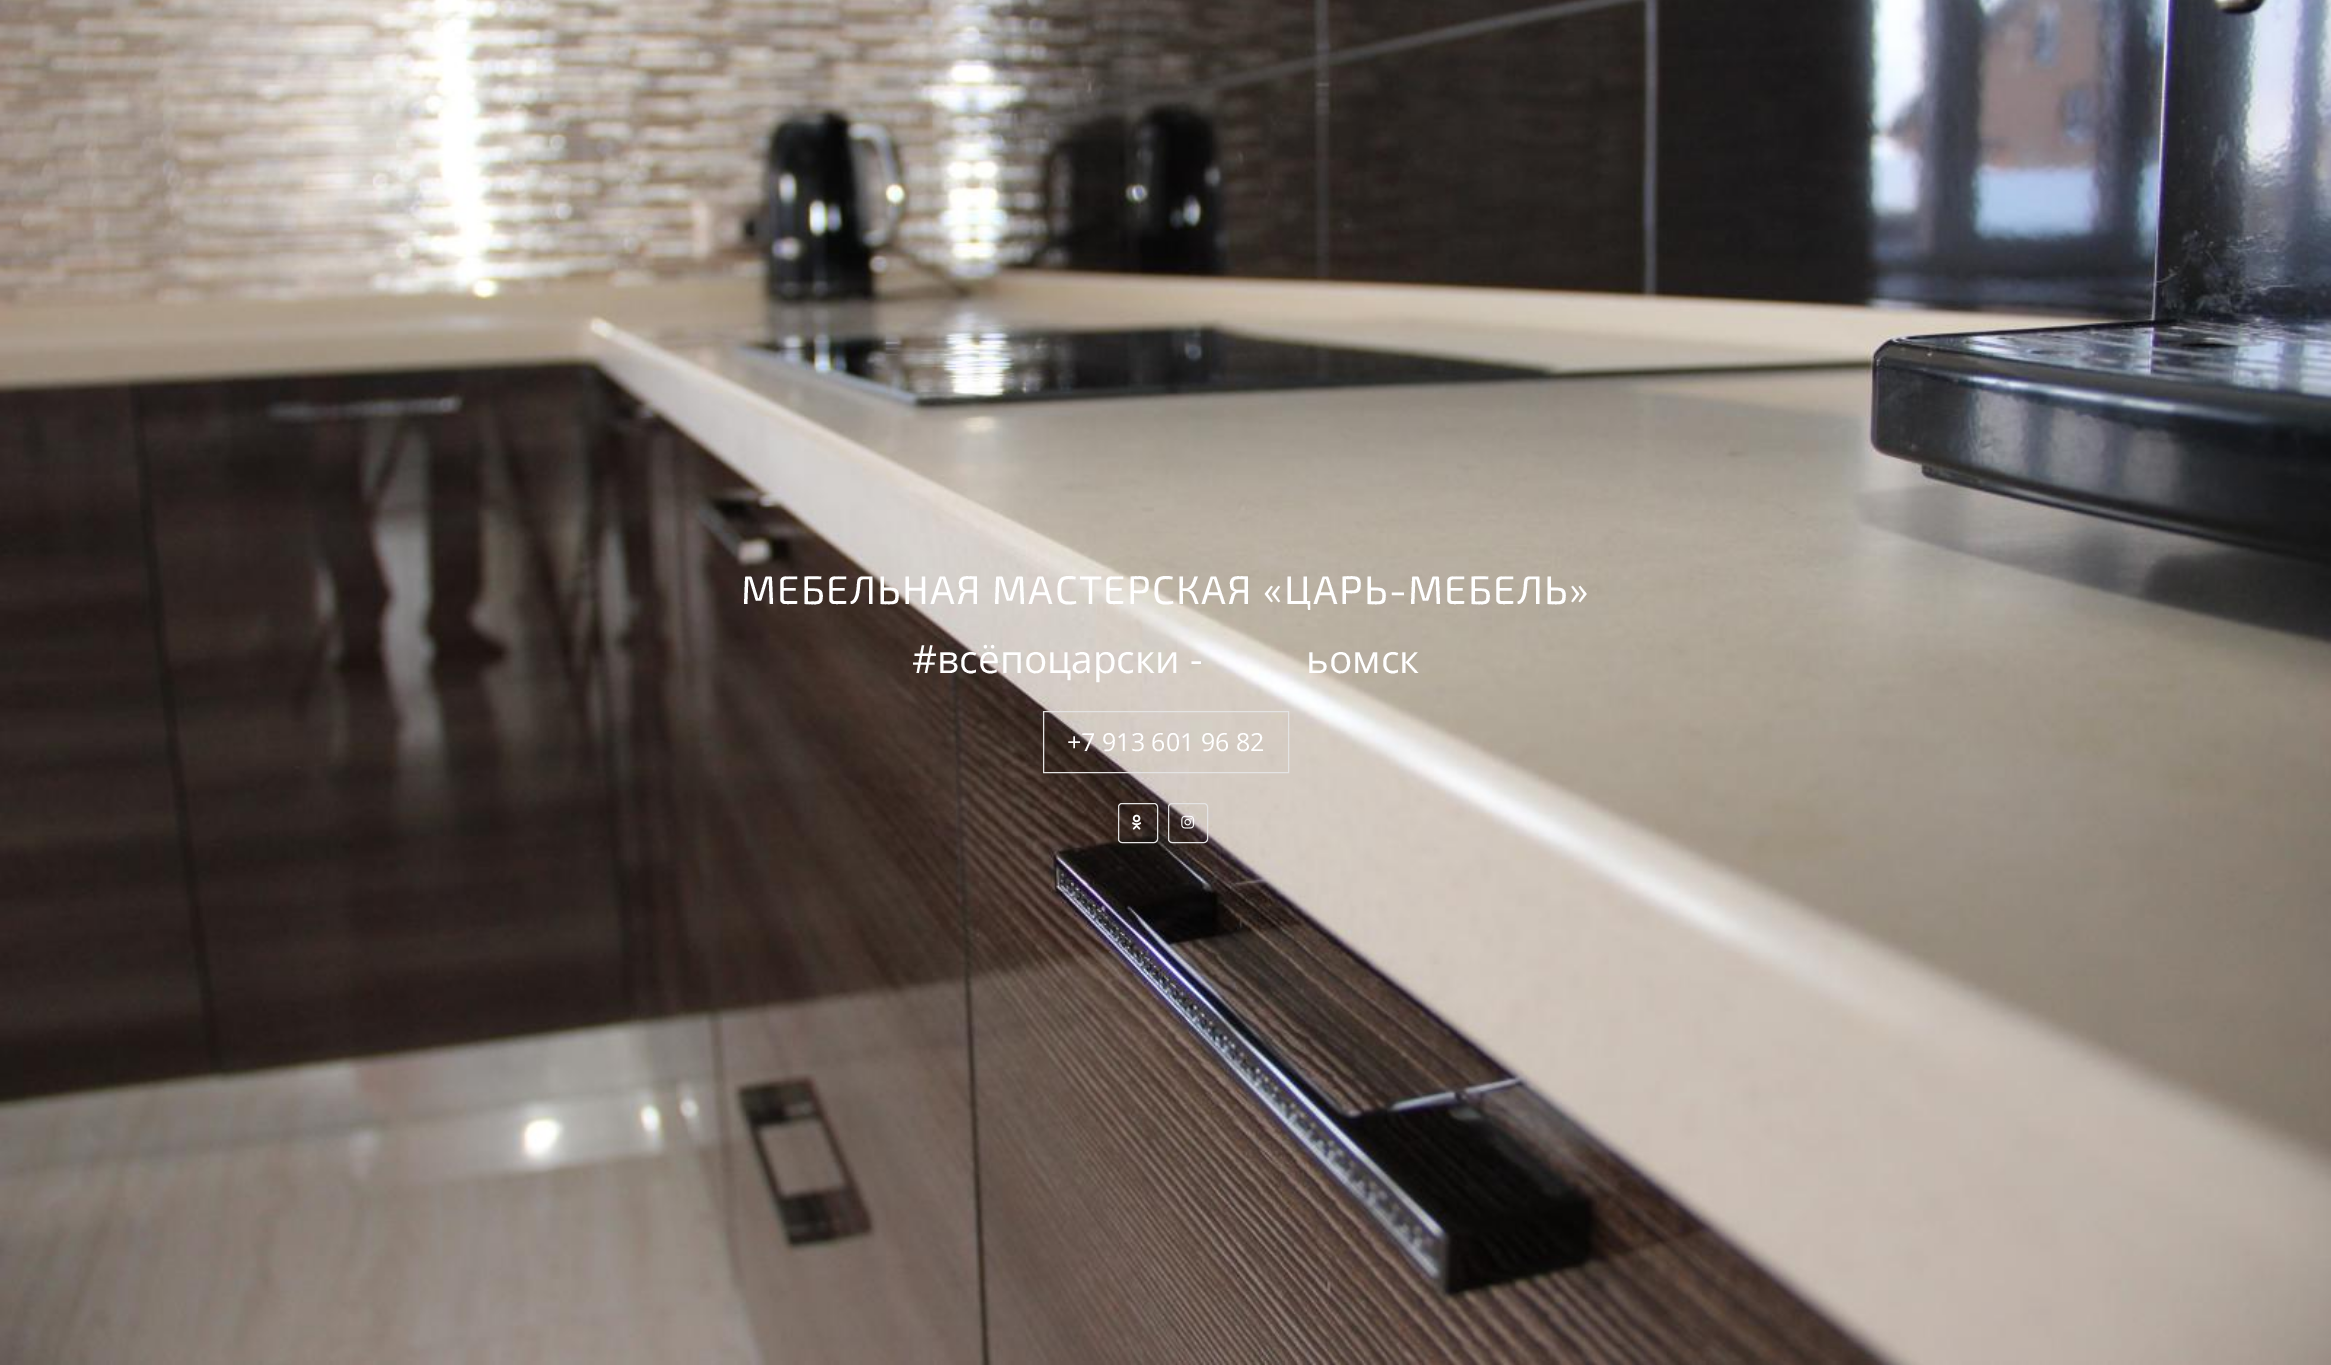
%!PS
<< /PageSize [2331 1365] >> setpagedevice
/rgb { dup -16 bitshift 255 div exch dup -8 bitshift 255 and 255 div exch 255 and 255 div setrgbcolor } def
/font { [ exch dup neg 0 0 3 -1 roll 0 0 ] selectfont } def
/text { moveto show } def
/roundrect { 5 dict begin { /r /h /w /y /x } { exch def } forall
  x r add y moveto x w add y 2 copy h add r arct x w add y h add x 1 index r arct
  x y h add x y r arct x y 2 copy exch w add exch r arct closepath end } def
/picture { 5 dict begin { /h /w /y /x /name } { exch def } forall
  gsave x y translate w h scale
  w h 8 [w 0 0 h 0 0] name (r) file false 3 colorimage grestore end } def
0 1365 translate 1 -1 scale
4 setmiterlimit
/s1 { /OpenSans-Regular 38.75 font 16#FFFFFF rgb } def
/s2 { /OpenSans-Regular 25 font 16#FFFFFF rgb } def
16#FFFFFF rgb
0 0 2331 1365 rectfill
(pic1.raw) 0 0 2331 1365 picture
/Exo2-Regular 40 font
741 604 moveto 1.25 0 (МЕБЕЛЬНАЯ МАСТЕРСКАЯ «ЦАРЬ-МЕБЕЛЬ») ashow
s1
(#всёпоцарски -) 912 673 text
(ьомск) 1306 673 text
16#E4E4E4 rgb
1043.5 711.5 245 61 rectstroke
s2
(+7 913 601 96 82) 1067 751 text
16#E4E4E4 rgb
1118.5 803.5 39 39 3.5 roundrect stroke
(pic2.raw) 1132 814 10 16 picture
1168.5 803.5 39 39 3.5 roundrect stroke
(pic3.raw) 1181 815 14 14 picture
showpage
